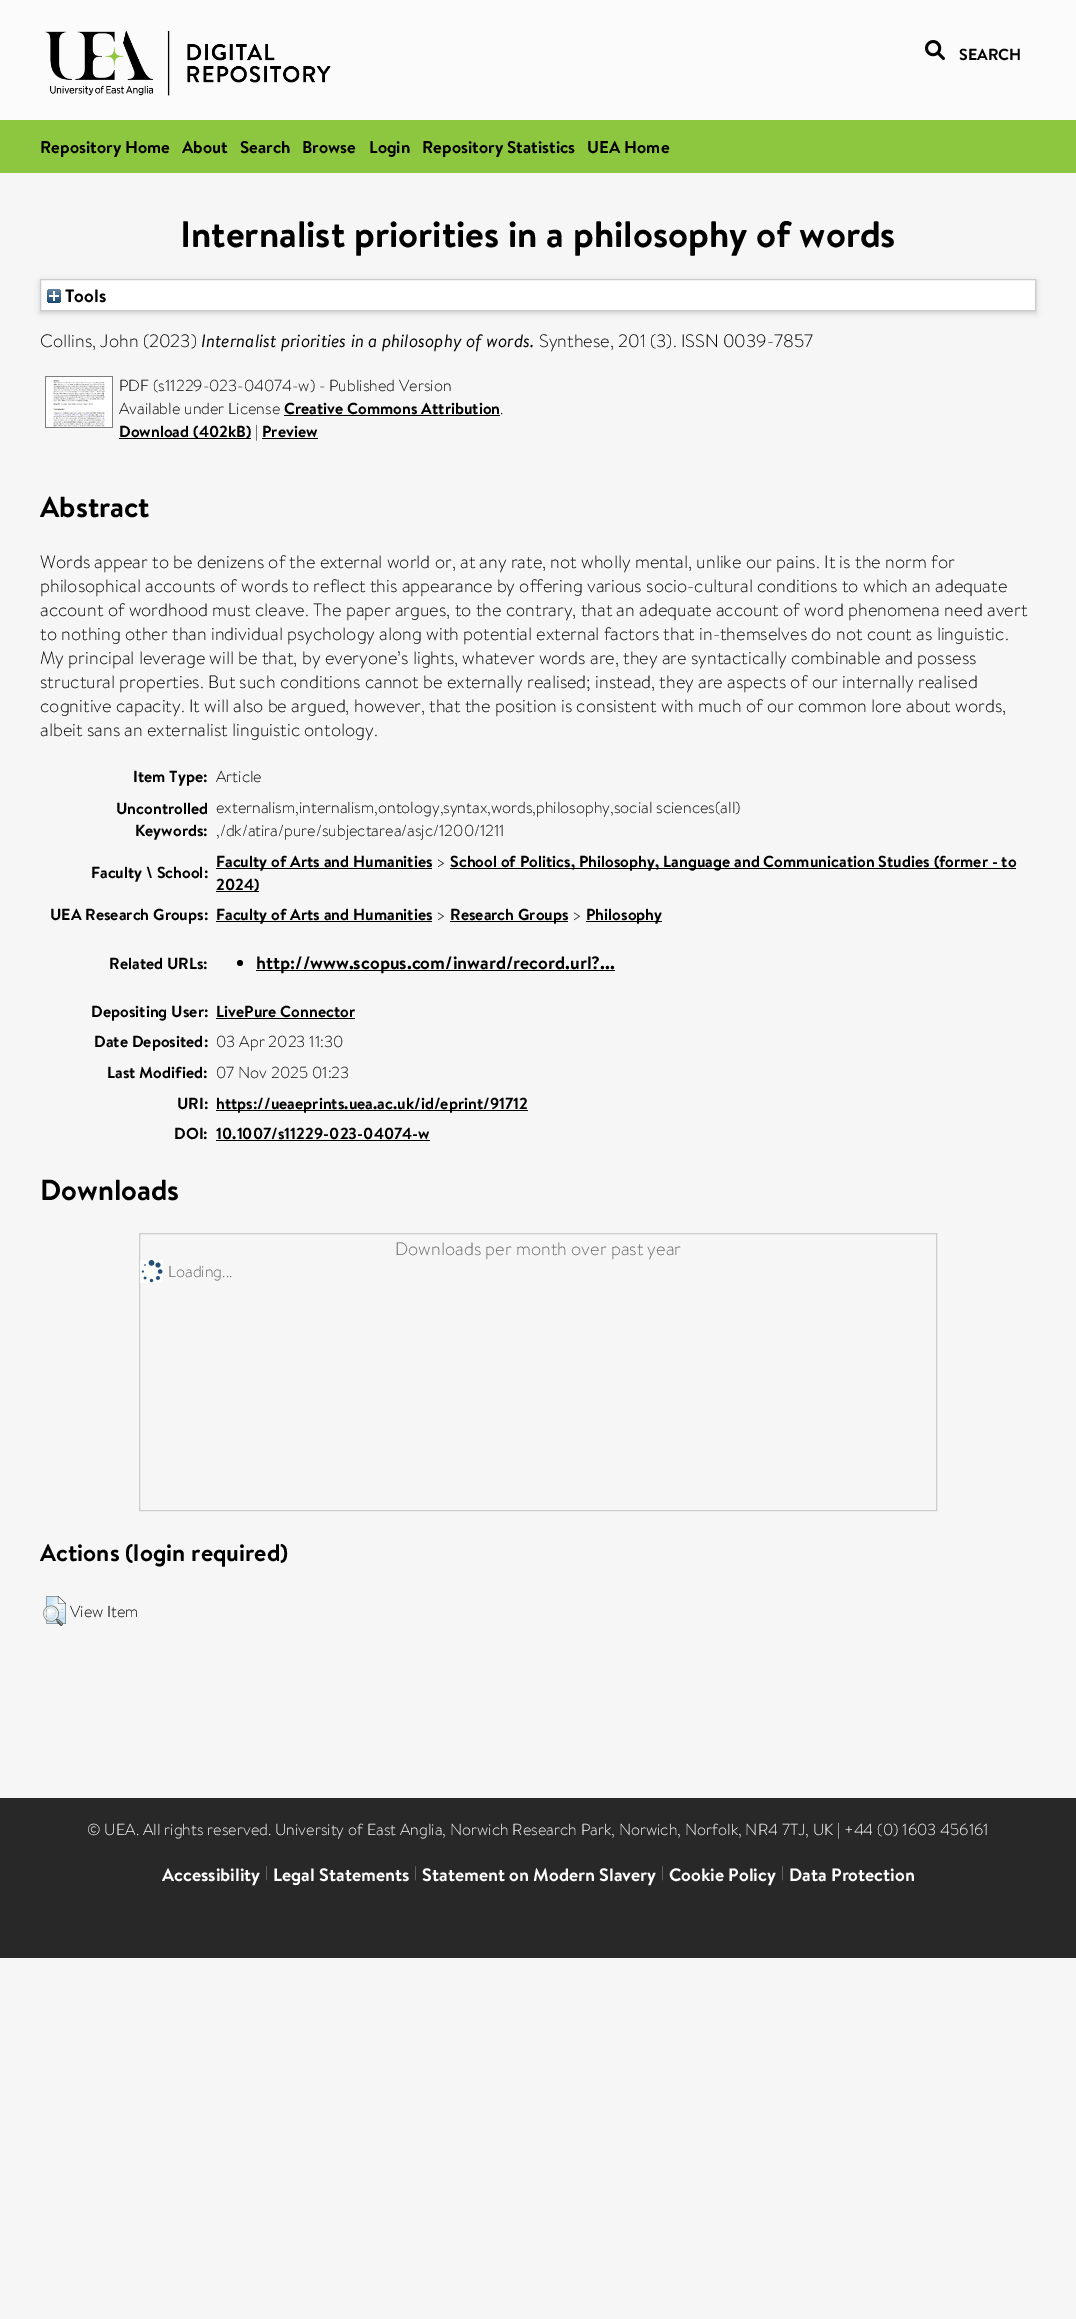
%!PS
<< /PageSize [1076 2319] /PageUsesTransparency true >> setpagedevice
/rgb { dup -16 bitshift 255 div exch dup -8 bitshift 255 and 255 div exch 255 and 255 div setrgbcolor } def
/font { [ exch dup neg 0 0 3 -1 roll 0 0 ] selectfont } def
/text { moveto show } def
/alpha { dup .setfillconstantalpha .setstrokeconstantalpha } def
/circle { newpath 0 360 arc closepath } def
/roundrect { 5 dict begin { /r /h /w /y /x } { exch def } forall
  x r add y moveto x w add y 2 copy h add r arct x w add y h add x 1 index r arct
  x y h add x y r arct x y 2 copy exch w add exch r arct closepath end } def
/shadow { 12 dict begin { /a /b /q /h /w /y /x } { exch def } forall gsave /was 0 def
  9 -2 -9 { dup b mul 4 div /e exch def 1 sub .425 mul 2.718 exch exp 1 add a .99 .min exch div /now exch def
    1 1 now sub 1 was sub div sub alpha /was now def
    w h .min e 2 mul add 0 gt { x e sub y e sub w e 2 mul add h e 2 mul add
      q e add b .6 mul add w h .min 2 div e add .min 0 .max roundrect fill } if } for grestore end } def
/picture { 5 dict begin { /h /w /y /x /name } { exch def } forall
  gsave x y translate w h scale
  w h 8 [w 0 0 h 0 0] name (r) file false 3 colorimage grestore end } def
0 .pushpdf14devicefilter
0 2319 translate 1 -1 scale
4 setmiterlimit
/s1 { /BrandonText-Bold 16 font 16#000000 rgb } def
/s2 { /BrandonText-Bold 17 font 16#000000 rgb } def
/s3 { /BrandonText-Bold 36.75 font 16#000000 rgb } def
/s4 { /BrandonText-Bold 18 font 16#000000 rgb } def
/s5 { /BrandonText-Light 18 font 16#000000 rgb } def
/s6 { /BrandonText-Italic 18 font 16#000000 rgb } def
/s7 { /BrandonText-Light 16 font 16#000000 rgb } def
/s8 { /BrandonText-Bold 29 font 16#000000 rgb } def
/s9 { /BrandonText-Light 18 font 16#666666 rgb } def
/s10 { /BrandonText-Light 16 font 16#666666 rgb } def
/s11 { /BrandonText-Bold 24 font 16#000000 rgb } def
/s12 { /BrandonText-Light 16 font 16#FFFFFF rgb } def
/s13 { /BrandonText-Bold 18 font 16#FFFFFF rgb } def
/s14 { /BrandonText-Light 14 font 16#FFFFFF rgb } def
16#F6F6F6 rgb
0 0 1076 2319 rectfill
16#FBFBFB rgb
0 0 1076 120 rectfill
(pic1.raw) 45 30 286 66 picture
(pic2.raw) 925 40 20 20 picture
s1
(SEARCH) 959 60 text
16#8DC63F rgb
0 120 1076 53 rectfill
s2
(Repository Home) 40 153 text
(About) 182 153 text
(Search) 240 153 text
(Browse) 302 153 text
(Login) 369 153 text
(Repository Statistics) 422 153 text
(UEA Home) 587 153 text
s3
(Internalist priorities in a philosophy of words) 180 247 text
16#646464 rgb
40 281 996 32 0 3 0.3 shadow
16#FFFFFF rgb
40.5 279.5 moveto 1035.5 279.5 lineto 1035.5 310.5 lineto 40.5 310.5 lineto closepath gsave fill grestore
16#CCCCCC rgb
stroke
(pic3.raw) 47 289 14 14 picture
s4
(Tools) 65 302 text
s5
(Collins, John \(2023\)) 40 347 text
s6
(Internalist priorities in a philosophy of words.) 201 347 text
s5
(Synthese, 201 \(3\). ISSN 0039-7857) 539 347 text
(pic4.raw) 45 376 68 52 picture
s7
(PDF \(s11229-023-04074-w\) - Published Version) 119 391 text
(Available under License) 119 414 text
s1
(Creative Commons Attribution) 284 414 text
s7
(.) 500 414 text
284 415 216 1 rectfill
119 438 132 1 rectfill
s1
(Download \(402kB\)) 119 437 text
s7
(|) 255 437 text
s1
(Preview) 262 437 text
262 438 56 1 rectfill
s8
(Abstract) 40 517 text
s5
(Words appear to be denizens of the external world or, at any rate, not wholly mental, unlike our pains. It is the norm for) 40 568 text
(philosophical accounts of words to reflect this appearance by offering various socio-cultural conditions to which an adequate) 40 592 text
(account of wordhood must cleave. The paper argues, to the contrary, that an adequate account of word phenomena need avert) 40 616 text
(to nothing other than individual psychology along with potential external factors that in-themselves do not count as linguistic.) 40 640 text
(My principal leverage will be that, by everyone’s lights, whatever words are, they are syntactically combinable and possess) 40 664 text
(structural properties. But such conditions cannot be externally realised; instead, they are aspects of our internally realised) 40 688 text
(cognitive capacity. It will also be argued, however, that the position is consistent with much of our common lore about words,) 40 712 text
(albeit sans an externalist linguistic ontology.) 40 736 text
s1
(Item Type:) 133 782 text
s7
(Article) 216 782 text
s1
(Uncontrolled) 116 814 text
(Keywords:) 135 836 text
s7
(externalism,internalism,ontology,syntax,words,philosophy,social sciences\(all\)) 216 813 text
(,/dk/atira/pure/subjectarea/asjc/1200/1211) 216 836 text
s1
(Faculty \\ School:) 91 878 text
216 868 216 1 rectfill
(Faculty of Arts and Humanities) 216 867 text
s7
(>) 436 867 text
450 868 566 1 rectfill
s1
(School of Politics, Philosophy, Language and Communication Studies \(former - to) 450 867 text
216 891 43 1 rectfill
(2024\)) 216 890 text
(UEA Research Groups:) 50 920 text
216 921 216 1 rectfill
(Faculty of Arts and Humanities) 216 920 text
s7
(>) 436 920 text
450 921 118 1 rectfill
s1
(Research Groups) 450 920 text
s7
(>) 572 920 text
586 921 76 1 rectfill
s1
(Philosophy) 586 920 text
(Related URLs:) 109 969 text
240 963 3 circle fill
256 970 359 1 rectfill
s4
(http://www.scopus.com/inward/record.url?...) 256 969 text
s1
(Depositing User:) 91 1017 text
(LivePure Connector) 216 1017 text
216 1018 139 1 rectfill
(Date Deposited:) 94 1047 text
s7
(03 Apr 2023 11:30) 216 1047 text
s1
(Last Modified:) 107 1078 text
s7
(07 Nov 2025 01:23) 216 1078 text
s1
(URI:) 177 1109 text
216 1110 312 1 rectfill
(https://ueaeprints.uea.ac.uk/id/eprint/91712) 216 1109 text
(DOI:) 174 1139 text
(10.1007/s11229-023-04074-w) 216 1139 text
216 1140 214 1 rectfill
s8
(Downloads) 40 1200 text
16#CCCCCC rgb
139.5 1233.5 797 277 rectstroke
s9
(Downloads per month over past year) 395 1255 text
(pic5.raw) 140 1260 23 23 picture
s10
(Loading...) 168 1277 text
s11
(Actions \(login required\)) 40 1561 text
(pic6.raw) 43 1596 23 30 picture
s7
(View Item) 70 1617 text
16#282828 rgb
0 1798 1076 160 rectfill
s12
(© UEA. All rights reserved. University of East Anglia, Norwich Research Park, Norwich, Norfolk, NR4 7TJ, UK | +44 \(0\) 1603 456161) 87 1835 text
s13
(Accessibility) 162 1881 text
s14
(|) 265 1877 text
s13
(Legal Statements) 273 1881 text
s14
(|) 414 1877 text
s13
(Statement on Modern Slavery) 422 1881 text
s14
(|) 661 1877 text
s13
(Cookie Policy) 669 1881 text
s14
(|) 781 1877 text
s13
(Data Protection) 789 1881 text
.poppdf14devicefilter showpage
